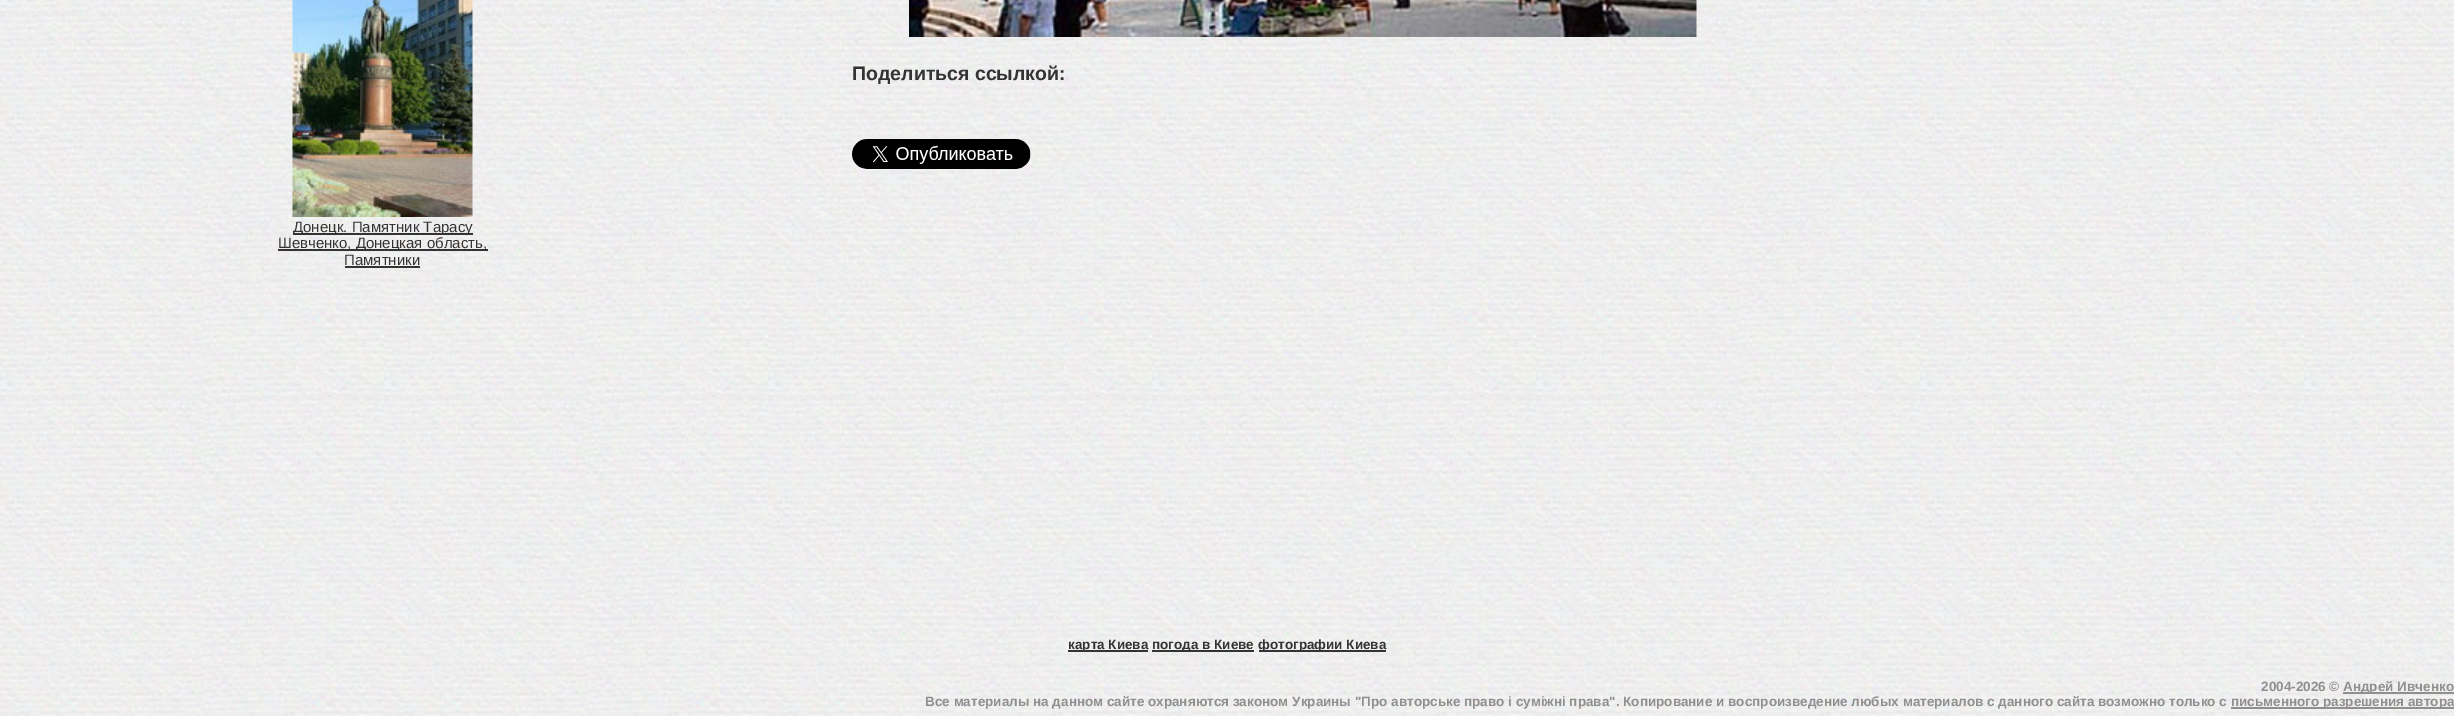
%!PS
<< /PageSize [2454 716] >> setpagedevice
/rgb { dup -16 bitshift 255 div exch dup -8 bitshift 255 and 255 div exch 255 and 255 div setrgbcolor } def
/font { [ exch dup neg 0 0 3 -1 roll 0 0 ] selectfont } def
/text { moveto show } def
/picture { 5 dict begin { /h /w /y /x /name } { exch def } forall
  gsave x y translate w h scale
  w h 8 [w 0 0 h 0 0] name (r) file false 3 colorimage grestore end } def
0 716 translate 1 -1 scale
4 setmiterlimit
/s1 { /LiberationSans-Bold 19.5 font 16#333333 rgb } def
/s2 { /LiberationSans-Regular 15 font 16#333333 rgb } def
/s3 { /LiberationSans-Bold 13.5 font 16#333333 rgb } def
/s4 { /LiberationSans-Bold 13.5 font 16#908F8F rgb } def
16#FFFFFF rgb
0 0 2454 716 rectfill
(pic1.raw) 0 0 2454 716 picture
(pic2.raw) 909 0 788 37 picture
s1
(Поделиться ссылкой:) 852 80 text
(pic3.raw) 852 139 179 30 picture
(pic4.raw) 292 0 181 217 picture
293 233 180 2 rectfill
s2
(Донецк. Памятник Тарасу) 293 232 text
278 249 210 2 rectfill
(Шевченко, Донецкая область,) 278 248 text
(Памятники) 344 265 text
345 266 75 2 rectfill
1068 650 80 2 rectfill
s3
(карта Киева) 1068 649 text
1152 650 102 2 rectfill
(погода в Киеве) 1152 649 text
1259 650 127 2 rectfill
(фотографии Киева) 1258 649 text
s4
(2004-2026 ©) 2261 691 text
2343 692 111 2 rectfill
(Андрей Ивченко) 2343 691 text
(Все материалы на данном сайте охраняются законом Украины "Про авторське право і суміжні права". Копирование и воспроизведение любых материалов с данного сайта возможно только с) 925 706 text
2231 707 223 2 rectfill
(письменного разрешения автора) 2231 706 text
showpage
